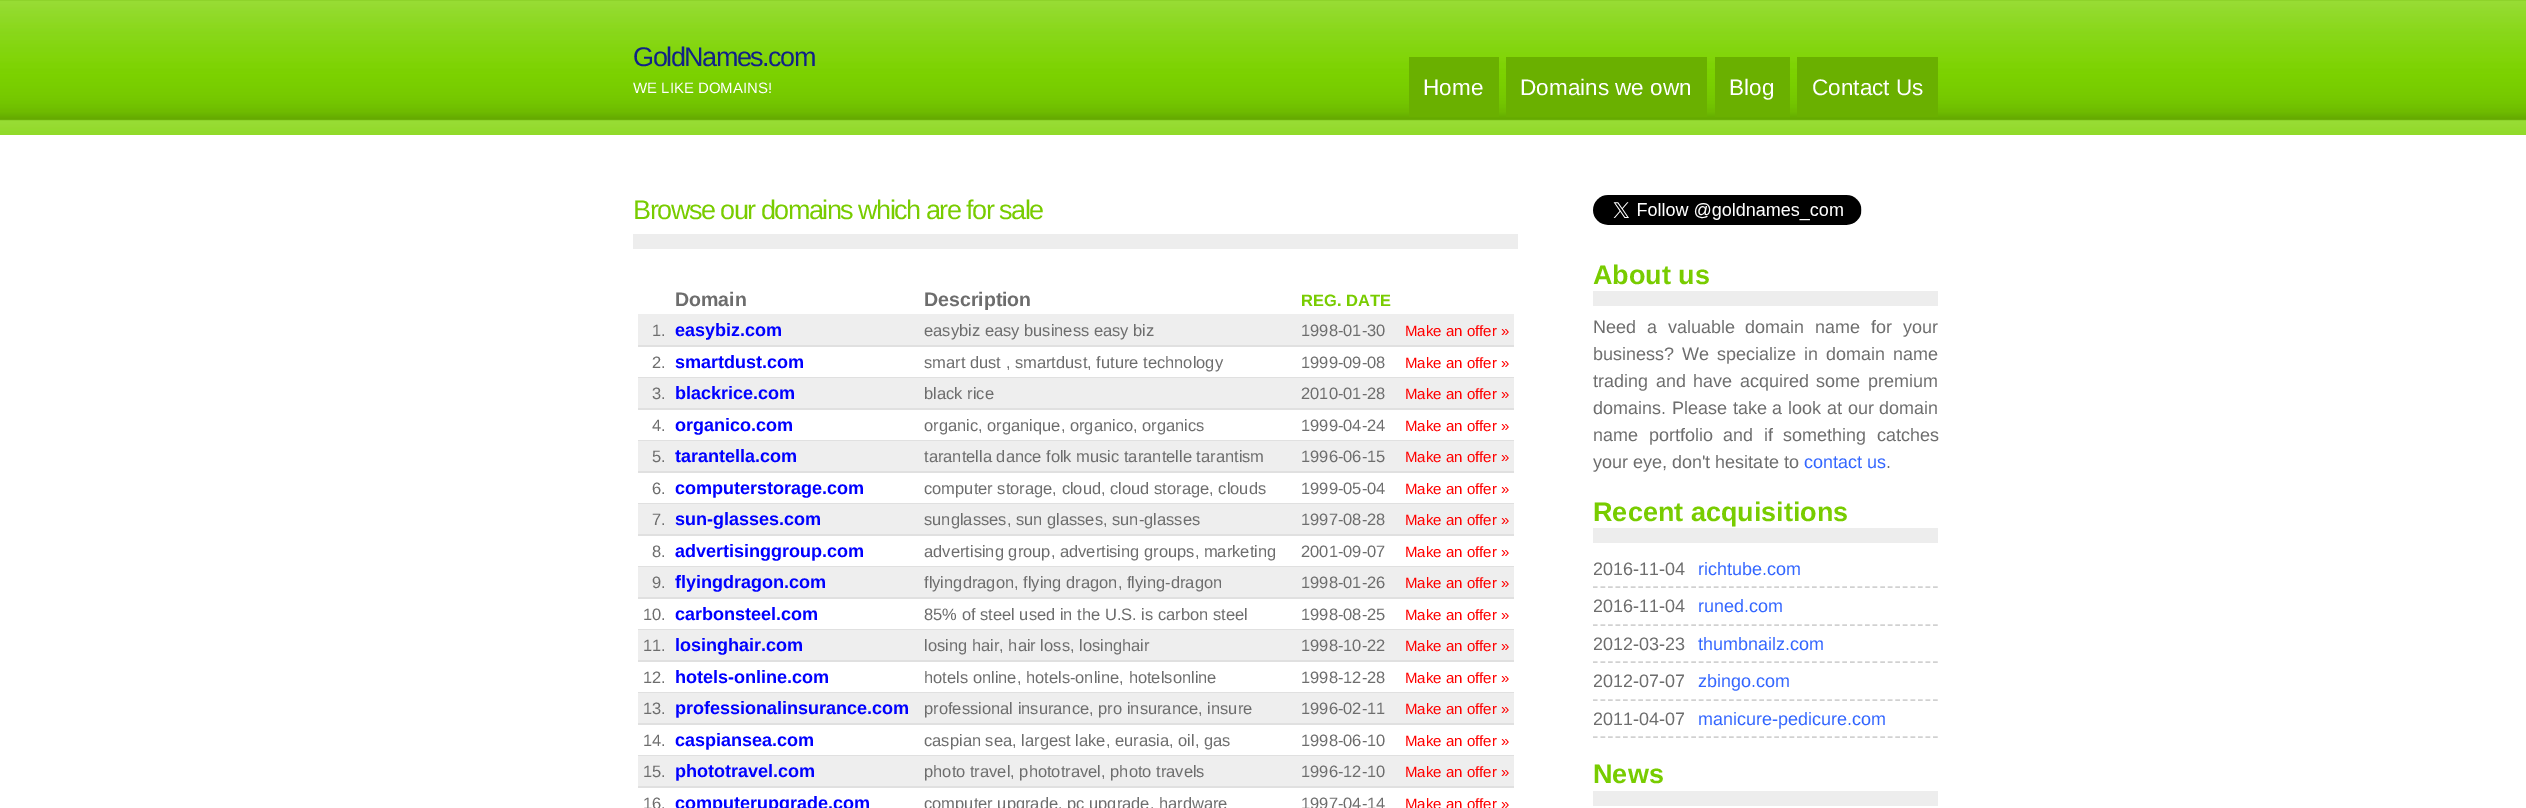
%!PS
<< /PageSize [2526 808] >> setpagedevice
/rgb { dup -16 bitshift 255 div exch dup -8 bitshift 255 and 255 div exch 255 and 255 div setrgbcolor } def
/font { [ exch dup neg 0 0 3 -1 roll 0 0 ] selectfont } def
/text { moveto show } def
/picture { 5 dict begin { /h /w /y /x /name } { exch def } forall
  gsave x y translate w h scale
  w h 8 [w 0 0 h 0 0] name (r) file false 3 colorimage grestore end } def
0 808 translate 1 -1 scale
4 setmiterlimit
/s1 { /LiberationSans-Regular 15 font 16#FFFFFF rgb } def
/s2 { /LiberationSans-Regular 22.5 font 16#FFFFFF rgb } def
/s3 { /LiberationSans-Bold 19.5 font 16#6D6D6D rgb } def
/s4 { /LiberationSans-Bold 16.5 font 16#78CC00 rgb } def
/s5 { /LiberationSans-Regular 16.5 font 16#6D6D6D rgb } def
/s6 { /LiberationSans-Bold 18 font 16#0000FF rgb } def
/s7 { /LiberationSans-Regular 15 font 16#FF0000 rgb } def
/s8 { /LiberationSans-Bold 27 font 16#78CC00 rgb } def
/s9 { /LiberationSans-Regular 18 font 16#6D6D6D rgb } def
/s10 { /LiberationSans-Regular 18 font 16#3366FF rgb } def
16#FFFFFF rgb
0 0 2526 808 rectfill
(pic1.raw) 0 0 2526 135 picture
/LiberationSans-Regular 27 font
16#112287 rgb
633 66 moveto -1.5 0 (GoldNames.com) ashow
s1
(WE LIKE DOMAINS!) 633 93 text
16#6AB000 rgb
1409 57 90 60 rectfill
s2
(Home) 1423 95 text
16#6AB000 rgb
1506 57 201 60 rectfill
s2
(Domains we own) 1520 95 text
16#6AB000 rgb
1715 57 75 60 rectfill
s2
(Blog) 1729 95 text
16#6AB000 rgb
1797 57 141 60 rectfill
s2
(Contact Us) 1812 95 text
16#EDEDED rgb
633 234 885 15 rectfill
/LiberationSans-Regular 27 font
16#78CC00 rgb
633 219 moveto -1.5 0 (Browse our domains which are for sale) ashow
16#EEEEEE rgb
638 314 876 31 rectfill
s3
(Domain) 675 306 text
(Description) 924 306 text
s4
(REG. DATE) 1301 306 text
16#E0E0E0 rgb
638 345 876 2 rectfill
s5
(1.) 652 336 text
s6
(easybiz.com) 675 336 text
s5
(easybiz easy business easy biz) 924 336 text
(1998-01-30) 1301 336 text
s7
(Make an offer ») 1405 336 text
16#E0E0E0 rgb
638 377 876 1 rectfill
s5
(2.) 652 368 text
s6
(smartdust.com) 675 368 text
s5
(smart dust , smartdust, future technology) 924 368 text
(1999-09-08) 1301 368 text
s7
(Make an offer ») 1405 368 text
16#EEEEEE rgb
638 378 876 30 rectfill
16#E0E0E0 rgb
638 408 876 2 rectfill
s5
(3.) 652 399 text
s6
(blackrice.com) 675 399 text
s5
(black rice) 924 399 text
(2010-01-28) 1301 399 text
s7
(Make an offer ») 1405 399 text
16#E0E0E0 rgb
638 440 876 1 rectfill
s5
(4.) 652 431 text
s6
(organico.com) 675 431 text
s5
(organic, organique, organico, organics) 924 431 text
(1999-04-24) 1301 431 text
s7
(Make an offer ») 1405 431 text
16#EEEEEE rgb
638 441 876 30 rectfill
16#E0E0E0 rgb
638 471 876 2 rectfill
s5
(5.) 652 462 text
s6
(tarantella.com) 675 462 text
s5
(tarantella dance folk music tarantelle tarantism) 924 462 text
(1996-06-15) 1301 462 text
s7
(Make an offer ») 1405 462 text
16#E0E0E0 rgb
638 503 876 1 rectfill
s5
(6.) 652 494 text
s6
(computerstorage.com) 675 494 text
s5
(computer storage, cloud, cloud storage, clouds) 924 494 text
(1999-05-04) 1301 494 text
s7
(Make an offer ») 1405 494 text
16#EEEEEE rgb
638 504 876 30 rectfill
16#E0E0E0 rgb
638 534 876 2 rectfill
s5
(7.) 652 525 text
s6
(sun-glasses.com) 675 525 text
s5
(sunglasses, sun glasses, sun-glasses) 924 525 text
(1997-08-28) 1301 525 text
s7
(Make an offer ») 1405 525 text
16#E0E0E0 rgb
638 566 876 1 rectfill
s5
(8.) 652 557 text
s6
(advertisinggroup.com) 675 557 text
s5
(advertising group, advertising groups, marketing) 924 557 text
(2001-09-07) 1301 557 text
s7
(Make an offer ») 1405 557 text
16#EEEEEE rgb
638 567 876 30 rectfill
16#E0E0E0 rgb
638 597 876 2 rectfill
s5
(9.) 652 588 text
s6
(flyingdragon.com) 675 588 text
s5
(flyingdragon, flying dragon, flying-dragon) 924 588 text
(1998-01-26) 1301 588 text
s7
(Make an offer ») 1405 588 text
16#E0E0E0 rgb
638 629 876 1 rectfill
s5
(10.) 643 620 text
s6
(carbonsteel.com) 675 620 text
s5
(85% of steel used in the U.S. is carbon steel) 924 620 text
(1998-08-25) 1301 620 text
s7
(Make an offer ») 1405 620 text
16#EEEEEE rgb
638 630 876 30 rectfill
16#E0E0E0 rgb
638 660 876 2 rectfill
s5
(11.) 643 651 text
s6
(losinghair.com) 675 651 text
s5
(losing hair, hair loss, losinghair) 924 651 text
(1998-10-22) 1301 651 text
s7
(Make an offer ») 1405 651 text
16#E0E0E0 rgb
638 692 876 1 rectfill
s5
(12.) 643 683 text
s6
(hotels-online.com) 675 683 text
s5
(hotels online, hotels-online, hotelsonline) 924 683 text
(1998-12-28) 1301 683 text
s7
(Make an offer ») 1405 683 text
16#EEEEEE rgb
638 693 876 30 rectfill
16#E0E0E0 rgb
638 723 876 2 rectfill
s5
(13.) 643 714 text
s6
(professionalinsurance.com) 675 714 text
s5
(professional insurance, pro insurance, insure) 924 714 text
(1996-02-11) 1301 714 text
s7
(Make an offer ») 1405 714 text
16#E0E0E0 rgb
638 755 876 1 rectfill
s5
(14.) 643 746 text
s6
(caspiansea.com) 675 746 text
s5
(caspian sea, largest lake, eurasia, oil, gas) 924 746 text
(1998-06-10) 1301 746 text
s7
(Make an offer ») 1405 746 text
16#EEEEEE rgb
638 756 876 30 rectfill
16#E0E0E0 rgb
638 786 876 2 rectfill
s5
(15.) 643 777 text
s6
(phototravel.com) 675 777 text
s5
(photo travel, phototravel, photo travels) 924 777 text
(1996-12-10) 1301 777 text
s7
(Make an offer ») 1405 777 text
s5
(16.) 643 809 text
s6
(computerupgrade.com) 675 809 text
s5
(computer upgrade, pc upgrade, hardware) 924 809 text
(1997-04-14) 1301 809 text
s7
(Make an offer ») 1405 809 text
(pic2.raw) 1593 195 269 30 picture
16#EDEDED rgb
1593 291 345 15 rectfill
s8
(About us) 1593 284 text
/LiberationSans-Regular 18 font
16#6D6D6D rgb
1593 333 moveto 5.75 0 32 (Need a valuable domain name for your) widthshow
1593 360 moveto 3 0 32 (business? We specialize in domain name) widthshow
1593 387 moveto 2.5 0 32 (trading and have acquired some premium) widthshow
1593 414 moveto 0.75 0 32 (domains. Please take a look at our domain) widthshow
1593 441 moveto 5.5 0 32 (name portfolio and if something catches) widthshow
(your eye, don't hesitate to) 1593 468 text
s10
(contact us) 1804 468 text
s9
(.) 1886 468 text
16#EDEDED rgb
1593 528 345 15 rectfill
s8
(Recent acquisitions) 1593 521 text
16#D1D1D1 rgb
1.5 setlinewidth
[4.5 3.06] 0 setdash
1593 587 moveto 1938 587 lineto stroke
s9
(2016-11-04) 1593 575 text
s10
(richtube.com) 1698 575 text
16#D1D1D1 rgb
1593 625 moveto 1938 625 lineto stroke
s9
(2016-11-04) 1593 612 text
s10
(runed.com) 1698 612 text
16#D1D1D1 rgb
1593 662 moveto 1938 662 lineto stroke
s9
(2012-03-23) 1593 650 text
s10
(thumbnailz.com) 1698 650 text
16#D1D1D1 rgb
1593 700 moveto 1938 700 lineto stroke
s9
(2012-07-07) 1593 687 text
s10
(zbingo.com) 1698 687 text
16#D1D1D1 rgb
1593 737 moveto 1938 737 lineto stroke
s9
(2011-04-07) 1593 725 text
s10
(manicure-pedicure.com) 1698 725 text
16#EDEDED rgb
1593 791 345 15 rectfill
s8
(News) 1593 783 text
showpage
